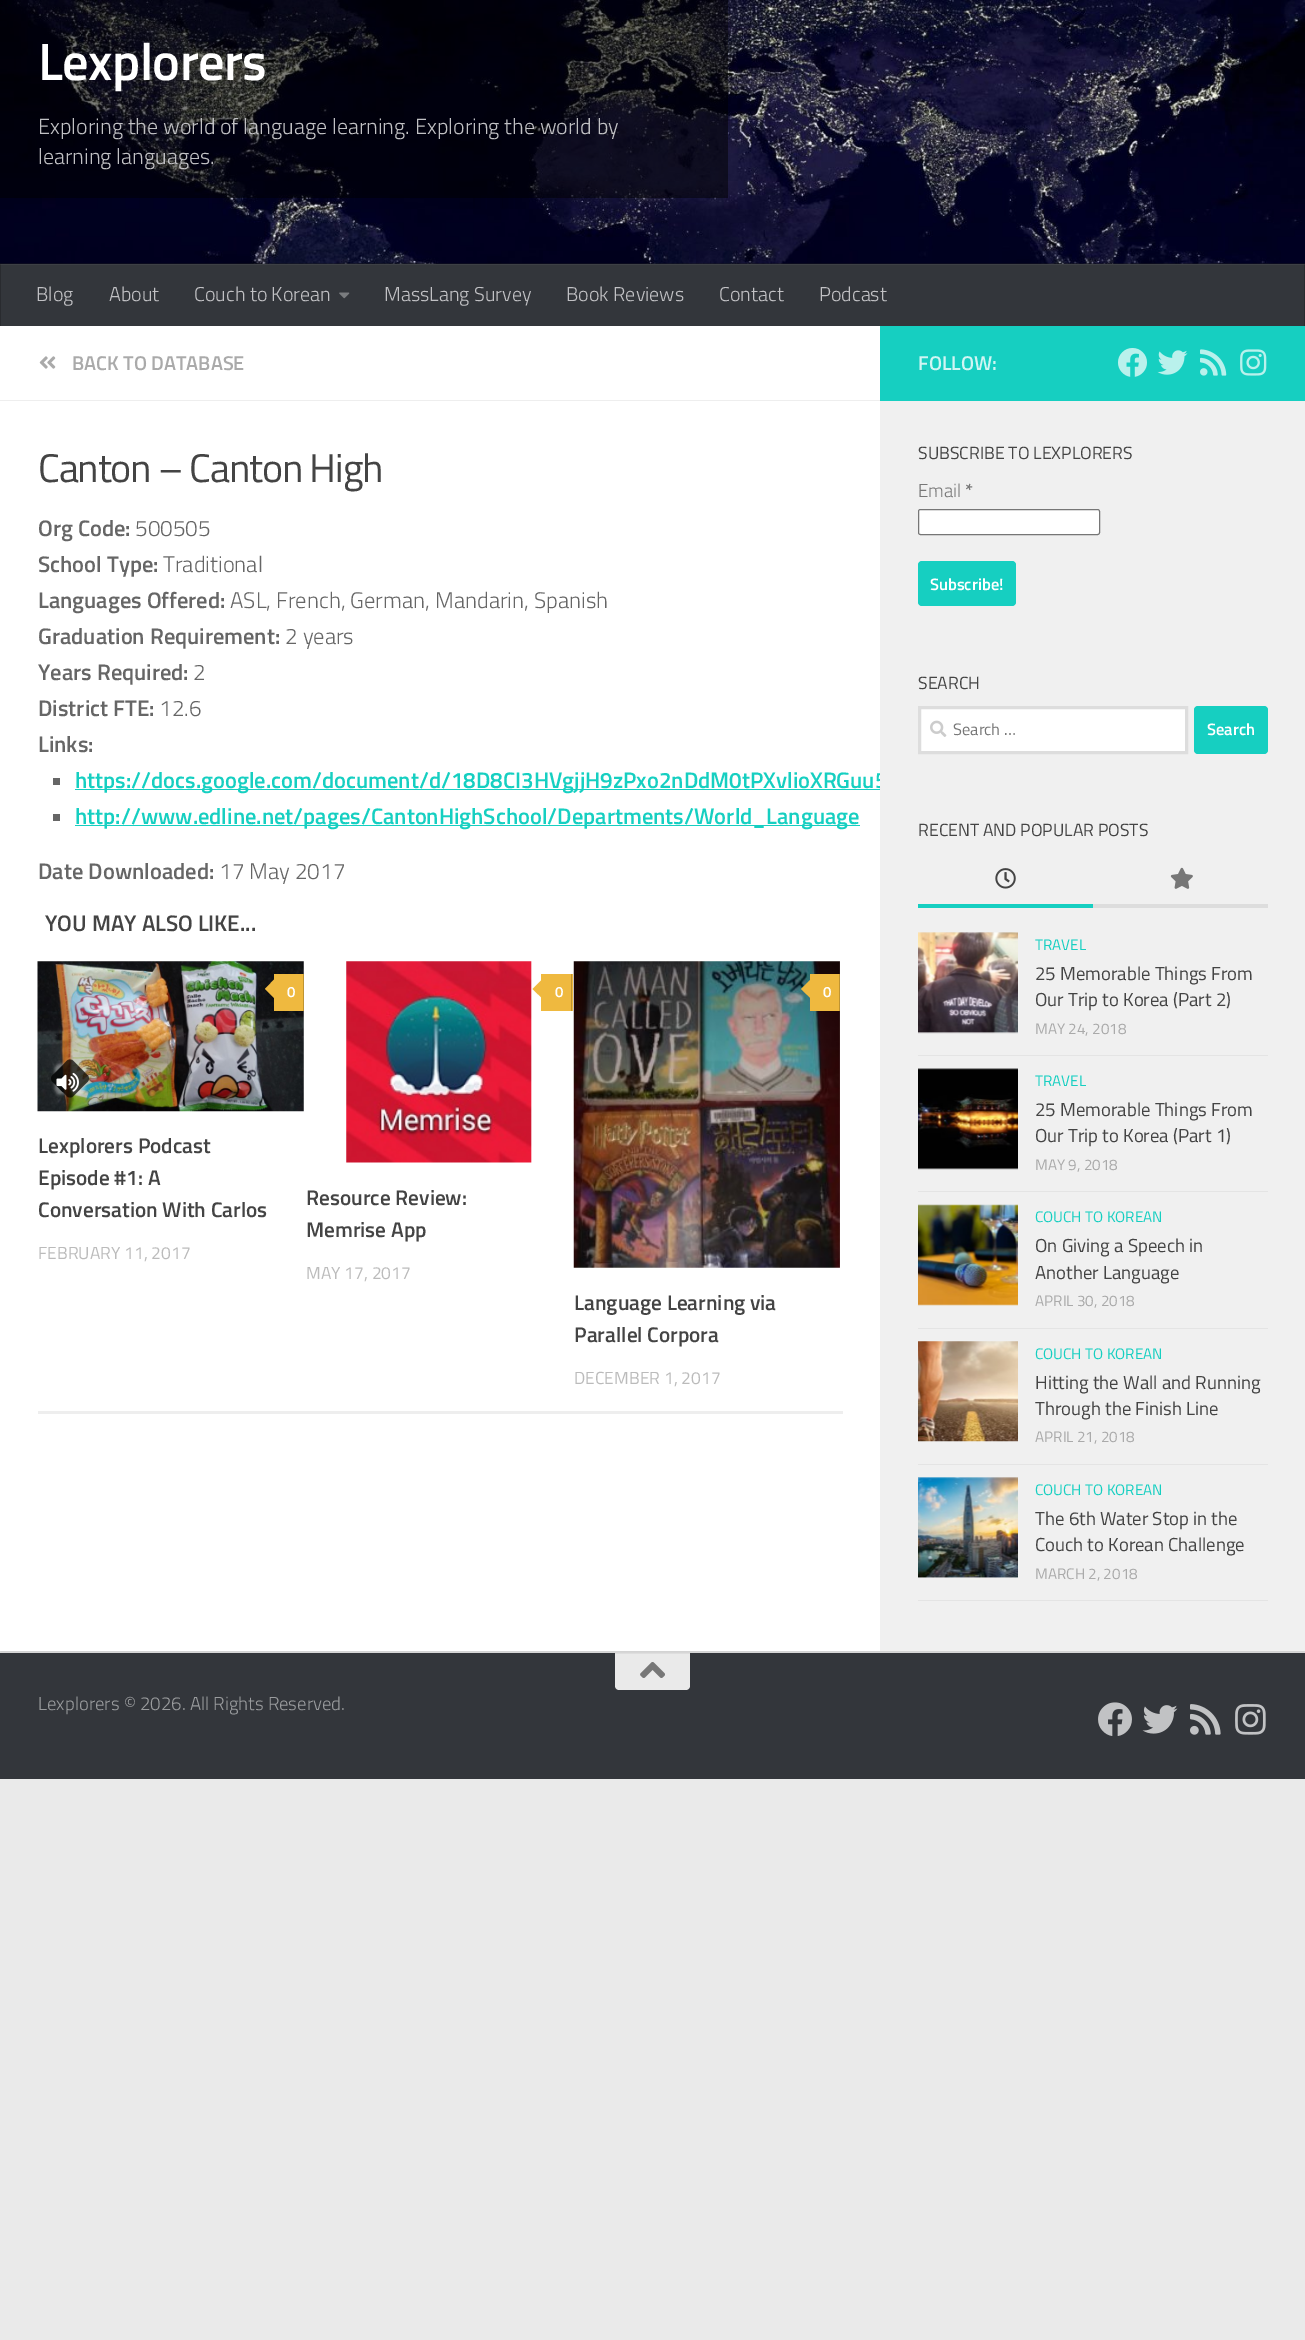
%!PS
<< /PageSize [1305 2340] /PageUsesTransparency true >> setpagedevice
/rgb { dup -16 bitshift 255 div exch dup -8 bitshift 255 and 255 div exch 255 and 255 div setrgbcolor } def
/font { [ exch dup neg 0 0 3 -1 roll 0 0 ] selectfont } def
/text { moveto show } def
/alpha { dup .setfillconstantalpha .setstrokeconstantalpha } def
/roundrect { 5 dict begin { /r /h /w /y /x } { exch def } forall
  x r add y moveto x w add y 2 copy h add r arct x w add y h add x 1 index r arct
  x y h add x y r arct x y 2 copy exch w add exch r arct closepath end } def
/shadow { 12 dict begin { /a /b /q /h /w /y /x } { exch def } forall gsave /was 0 def
  9 -2 -9 { dup b mul 4 div /e exch def 1 sub .425 mul 2.718 exch exp 1 add a .99 .min exch div /now exch def
    1 1 now sub 1 was sub div sub alpha /was now def
    w h .min e 2 mul add 0 gt { x e sub y e sub w e 2 mul add h e 2 mul add
      q e add b .6 mul add w h .min 2 div e add .min 0 .max roundrect fill } if } for grestore end } def
/picture { 5 dict begin { /h /w /y /x /name } { exch def } forall
  gsave x y translate w h scale
  w h 8 [w 0 0 h 0 0] name (r) file false 3 colorimage grestore end } def
0 .pushpdf14devicefilter
0 2340 translate 1 -1 scale
4 setmiterlimit
/s1 { /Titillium-Light 22 font 16#C1C1C4 rgb } def
/s2 { /Titillium-Light 20 font 16#C1C1C4 rgb } def
/s3 { /Titillium-SemiBold 20 font 16#AAAAAA rgb } def
/s4 { /Titillium-SemiBold 22.5 font 16#666666 rgb } def
/s5 { /Titillium-Light 22.5 font 16#666666 rgb } def
/s6 { /Titillium-SemiBold 22.5 font 16#16CFC1 rgb } def
/s7 { /Titillium-SemiBold 22.5 font 16#444444 rgb } def
/s8 { /Titillium-SemiBold 15 font 16#FFFFFF rgb } def
/s9 { /Titillium-SemiBold 21.25 font 16#444444 rgb } def
/s10 { /Titillium-Regular 17.5 font 16#BBBBBB rgb } def
/s11 { /Titillium-SemiBold 20 font 16#D0F5F3 rgb } def
/s12 { /Titillium-Regular 17.6 font 16#444444 rgb } def
/s13 { /Titillium-Light 18.75 font 16#777777 rgb } def
/s14 { /Titillium-SemiBold 18.75 font 16#777777 rgb } def
/s15 { /Titillium-SemiBold 16.5 font 16#FFFFFF rgb } def
/s16 { /Titillium-Regular 16.5 font 16#777777 rgb } def
/s17 { /Titillium-Regular 15.25 font 16#16CFC1 rgb } def
/s18 { /Titillium-Regular 18.75 font 16#444444 rgb } def
/s19 { /Titillium-Regular 15.25 font 16#AAAAAA rgb } def
/s20 { /Titillium-Light 18.75 font 16#999B9D rgb } def
16#EAEAEA rgb
0 0 1305 2340 rectfill
16#000000 rgb
0 328 1305 1325 0 0.5 0.1 shadow
16#33363B rgb
0 263 1305 63 rectfill
16#3D4045 rgb
0 264 1305 1 rectfill
(pic1.raw) 0 0 1305 264 picture
0.5 alpha
16#000000 rgb
0 0 728 198 rectfill
/Titillium-SemiBold 52.5 font
1 alpha
16#FFFFFF rgb
38 80 moveto -0.6 0 (Lexplorers) ashow
s1
(Exploring the world of language learning. Exploring the world by) 38 134 text
(learning languages.) 38 164 text
0.2 alpha
16#000000 rgb
0 263 1305 1 rectfill
1 alpha
16#292B2F rgb
1304 264 1 62 rectfill
16#343639 rgb
1304 264 1 1 rectfill
16#292B2F rgb
0 264 1 62 rectfill
16#343639 rgb
0 264 1 1 rectfill
s2
(Blog) 36 301 text
(About) 109 301 text
(Couch to Korean) 194 301 text
(pic2.raw) 339 292 11 7 picture
(MassLang Survey) 384 301 text
(Book Reviews) 566 301 text
(Contact) 719 301 text
(Podcast) 819 301 text
16#FFFFFF rgb
0 326 880 1325 rectfill
16#EEEEEE rgb
0 400 880 1 rectfill
(pic3.raw) 39 356 17 13 picture
s3
(BACK TO DATABASE) 72 370 text
/Titillium-Regular 40 font
16#444444 rgb
38 482 moveto -1.25 0 (Canton – Canton High) ashow
s4
(Org Code:) 38 536 text
s5
(500505) 135 536 text
s4
(School Type:) 38 572 text
s5
(Traditional) 163 572 text
s4
(Languages Offered:) 38 608 text
s5
(ASL, French, German, Mandarin, Spanish) 230 608 text
s4
(Graduation Requirement:) 38 644 text
s5
(2 years) 285 644 text
s4
(Years Required:) 38 680 text
s5
(2) 193 680 text
s4
(District FTE:) 38 716 text
s5
(12.6) 159 716 text
s4
(Links:) 38 752 text
53 778 7 7 rectfill
16#16CFC1 rgb
75 789 805 1 rectfill
(https://docs.google.com/document/d/18D8CI3HVgjjH9zPxo2nDdM0tPXvlioXRGuu5) 75 788 text
16#666666 rgb
53 814 7 7 rectfill
16#16CFC1 rgb
75 825 785 1 rectfill
(http://www.edline.net/pages/CantonHighSchool/Departments/World_Language) 75 824 text
s4
(Date Downloaded:) 38 879 text
s5
(17 May 2017) 219 879 text
s7
(YOU MAY ALSO LIKE...) 45 931 text
16#EEEEEE rgb
38 1411 805 3 rectfill
(pic4.raw) 37 961 267 151 picture
gsave
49 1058 moveto 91 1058 lineto 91 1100 lineto 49 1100 lineto closepath 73.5 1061 moveto 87.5 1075 lineto 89.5 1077 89.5 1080 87.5 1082 curveto 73.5 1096 lineto 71.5 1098 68.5 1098 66.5 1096 curveto 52.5 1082 lineto 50.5 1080 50.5 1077 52.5 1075 curveto 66.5 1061 lineto 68.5 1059 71.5 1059 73.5 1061 curveto closepath eoclip newpath
16#FFFFFF rgb
55 1064 30 30 5 1.5 0.4 shadow
grestore
0.7 alpha
16#000000 rgb
73.5 1061 moveto 87.5 1075 lineto 89.5 1077 89.5 1080 87.5 1082 curveto 73.5 1096 lineto 71.5 1098 68.5 1098 66.5 1096 curveto 52.5 1082 lineto 50.5 1080 50.5 1077 52.5 1075 curveto 66.5 1061 lineto 68.5 1059 71.5 1059 73.5 1061 curveto closepath fill
1 alpha
(pic5.raw) 56 1072 23 20 picture
16#EFB93F rgb
274 974 29 37 rectfill
16#BF9432 rgb
303 974 1 37 rectfill
16#EFB93F rgb
276 977.5 moveto 276 1000 lineto 265 989 lineto closepath fill
s8
(0) 287 997 text
s9
(Lexplorers Podcast) 38 1153 text
(Episode #1: A) 38 1185 text
(Conversation With Carlos) 38 1217 text
s10
(FEBRUARY 11, 2017) 38 1259 text
(pic6.raw) 346 961 186 202 picture
16#EFB93F rgb
541 974 32 37 rectfill
16#BF9432 rgb
571 974 1 37 rectfill
16#EFB93F rgb
544 977.5 moveto 544 1000 lineto 532.5 989 lineto closepath fill
s8
(0) 555 997 text
s9
(Resource Review:) 306 1205 text
(Memrise App) 306 1237 text
s10
(MAY 17, 2017) 306 1279 text
(pic7.raw) 573 961 267 307 picture
16#EFB93F rgb
810 974 29 37 rectfill
16#BF9432 rgb
839 974 1 37 rectfill
16#EFB93F rgb
812.5 977.5 moveto 812.5 1000 lineto 801 989 lineto closepath fill
s8
(0) 823 997 text
s9
(Language Learning via) 574 1310 text
(Parallel Corpora) 574 1342 text
s10
(DECEMBER 1, 2017) 574 1384 text
16#F0F0F0 rgb
880 401 425 1225 rectfill
16#16CFC1 rgb
880 326 425 75 rectfill
s11
(FOLLOW:) 918 370 text
(pic8.raw) 1118 348 29 29 picture
(pic9.raw) 1157 350 31 25 picture
(pic10.raw) 1200 349 27 27 picture
(pic11.raw) 1240 349 27 27 picture
s12
(SUBSCRIBE TO LEXPLORERS) 918 459 text
s13
(Email) 918 497 text
s14
(*) 965 497 text
16#FFFFFF rgb
918.5 509.5 181 25 2 roundrect gsave fill grestore
16#767676 rgb
stroke
16#16CFC1 rgb
918 561 98 45 4 roundrect fill
s15
(Subscribe!) 930 590 text
s12
(SEARCH) 918 689 text
16#FFFFFF rgb
919.5 707.5 moveto 1186.5 707.5 lineto 1186.5 752.5 lineto 919.5 752.5 lineto closepath gsave fill grestore
16#DDDDDD rgb
3 setlinewidth
stroke
(pic12.raw) 930 720 17 17 picture
s16
(Search …) 953 735 text
16#16CFC1 rgb
1194 706 74 48 4 roundrect fill
s15
(Search) 1207 735 text
s12
(RECENT AND POPULAR POSTS) 918 836 text
16#DDDDDD rgb
1093 904 175 4 rectfill
16#16CFC1 rgb
918 904 175 4 rectfill
(pic13.raw) 995 868 21 21 picture
(pic14.raw) 1170 867 23 22 picture
16#E4E4E4 rgb
918 1055 350 1 rectfill
(pic15.raw) 918 932 100 102 picture
s17
(TRAVEL) 1035 950 text
s18
(25 Memorable Things From) 1035 980 text
(Our Trip to Korea \(Part 2\)) 1035 1006 text
s19
(MAY 24, 2018) 1035 1034 text
16#E4E4E4 rgb
918 1191 350 1 rectfill
(pic16.raw) 918 1068 100 102 picture
s17
(TRAVEL) 1035 1086 text
s18
(25 Memorable Things From) 1035 1116 text
(Our Trip to Korea \(Part 1\)) 1035 1142 text
s19
(MAY 9, 2018) 1035 1170 text
16#E4E4E4 rgb
918 1328 350 1 rectfill
(pic17.raw) 918 1204 100 102 picture
s17
(COUCH TO KOREAN) 1035 1222 text
s18
(On Giving a Speech in) 1035 1252 text
(Another Language) 1035 1279 text
s19
(APRIL 30, 2018) 1035 1306 text
16#E4E4E4 rgb
918 1464 350 1 rectfill
(pic18.raw) 918 1341 100 101 picture
s17
(COUCH TO KOREAN) 1035 1359 text
s18
(Hitting the Wall and Running) 1035 1389 text
(Through the Finish Line) 1035 1415 text
s19
(APRIL 21, 2018) 1035 1442 text
16#E4E4E4 rgb
918 1600 350 1 rectfill
(pic19.raw) 918 1477 100 101 picture
s17
(COUCH TO KOREAN) 1035 1495 text
s18
(The 6th Water Stop in the) 1035 1525 text
(Couch to Korean Challenge) 1035 1551 text
s19
(MARCH 2, 2018) 1035 1579 text
16#F0F0F0 rgb
880 1626 425 25 rectfill
16#33363B rgb
0 1653 1305 126 rectfill
16#EAEAEA rgb
615 1653 moveto 690 1653 lineto 690 1686 lineto 690 1688 688 1690 686 1690 curveto 619 1690 lineto 617 1690 615 1688 615 1686 curveto closepath fill
16#DEDEDE rgb
615 1653 75 1 rectfill
(pic20.raw) 640 1662 25 16 picture
s20
(Lexplorers © 2026. All Rights Reserved.) 38 1710 text
(pic21.raw) 1098 1702 34 34 picture
(pic22.raw) 1142 1705 36 29 picture
(pic23.raw) 1190 1704 31 31 picture
(pic24.raw) 1235 1704 31 31 picture
.poppdf14devicefilter showpage
